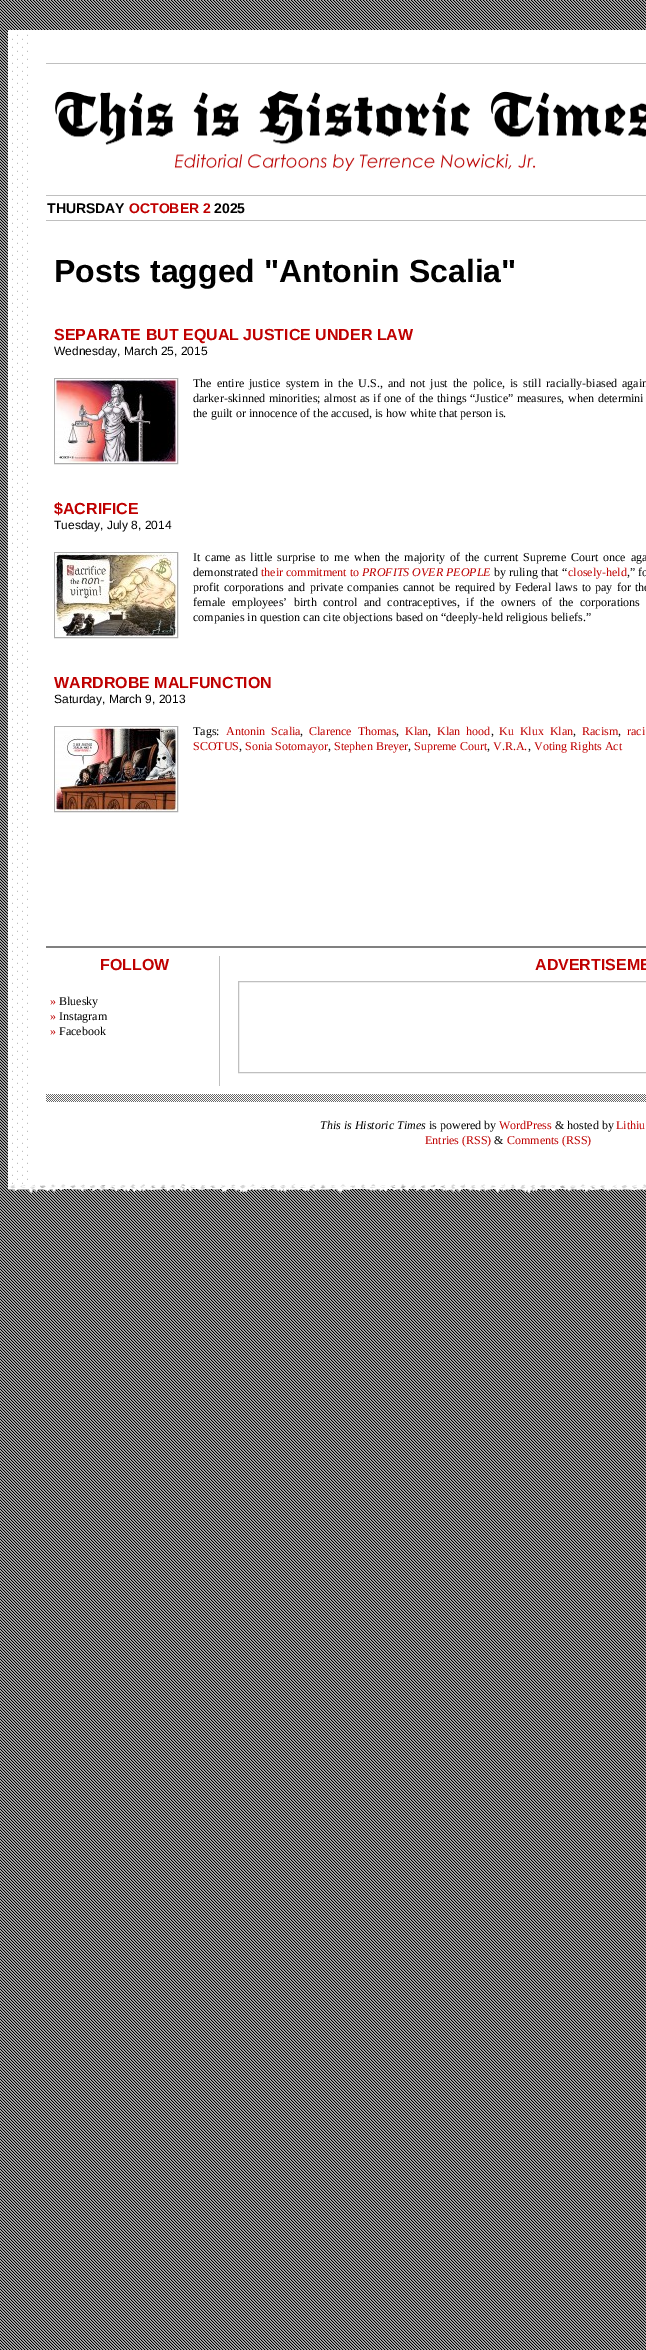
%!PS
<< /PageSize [646 2350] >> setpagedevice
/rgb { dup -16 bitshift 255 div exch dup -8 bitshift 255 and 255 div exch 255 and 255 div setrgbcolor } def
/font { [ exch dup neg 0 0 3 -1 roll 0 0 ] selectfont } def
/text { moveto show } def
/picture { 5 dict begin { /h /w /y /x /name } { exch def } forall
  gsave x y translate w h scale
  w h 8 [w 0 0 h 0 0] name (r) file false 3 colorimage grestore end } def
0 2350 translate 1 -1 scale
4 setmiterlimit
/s1 { /LiberationSans-Bold 14 font 16#000000 rgb } def
/s2 { /LiberationSans-Bold 14 font 16#BF0000 rgb } def
/s3 { /LiberationSans-Bold 32 font 16#000000 rgb } def
/s4 { /LiberationSans-Bold 16 font 16#BF0000 rgb } def
/s5 { /LiberationSans-Regular 12 font 16#000000 rgb } def
/s6 { /LiberationSerif-Regular 12 font 16#000000 rgb } def
/s7 { /LiberationSerif-Regular 12 font 16#BF0000 rgb } def
/s8 { /LiberationSerif-Italic 12 font 16#BF0000 rgb } def
/s9 { /LiberationSerif-Italic 12 font 16#000000 rgb } def
16#FFFFFF rgb
0 0 646 2350 rectfill
(pic1.raw) 0 0 646 2350 picture
8 30 638 4 rectfill
(pic2.raw) 8 34 638 1150 picture
16#BFBFBF rgb
46 220 600 1 rectfill
46 63 600 1 rectfill
46 195 600 1 rectfill
(pic3.raw) 55 91 591 80 picture
s1
(THURSDAY) 47 213 text
s2
(OCTOBER 2) 129 213 text
s1
(2025) 214 213 text
s3
(Posts tagged "Antonin Scalia") 54 282 text
s4
(SEPARATE BUT EQUAL JUSTICE UNDER LAW) 54 340 text
s5
(Wednesday, March 25, 2015) 54 355 text
16#ACACAC rgb
54.5 378.5 123 85 rectstroke
(pic4.raw) 55 379 122 84 picture
/LiberationSerif-Regular 12 font
16#000000 rgb
193 387 moveto 2.1 0 32 (The entire justice system in the U.S., and not just the police, is still racially-biased again) widthshow
193 402 moveto 0.6 0 32 (darker-skinned minorities; almost as if one of the things “Justice” measures, when determini) widthshow
(the guilt or innocence of the accused, is how white that person is.) 193 417 text
s4
($ACRIFICE) 54 514 text
s5
(Tuesday, July 8, 2014) 54 529 text
16#ACACAC rgb
54.5 552.5 123 85 rectstroke
(pic5.raw) 55 553 122 84 picture
/LiberationSerif-Regular 12 font
16#000000 rgb
193 561 moveto 1.9 0 32 (It came as little surprise to me when the majority of the current Supreme Court once aga) widthshow
(demonstrated) 193 576 text
s7
(their commitment to) 261 576 text
s8
(PROFITS OVER PEOPLE) 362 576 text
s6
(by ruling that “) 494 576 text
s7
(closely-held) 568 576 text
s6
(,” fo) 627 576 text
193 591 moveto 1.25 0 32 (profit corporations and private companies cannot be required by Federal laws to pay for the) widthshow
193 606 moveto 3.5 0 32 (female employees’ birth control and contraceptives, if the owners of the corporations) widthshow
(companies in question can cite objections based on “deeply-held religious beliefs.”) 193 621 text
s4
(WARDROBE MALFUNCTION) 54 688 text
s5
(Saturday, March 9, 2013) 54 703 text
16#ACACAC rgb
54.5 726.5 123 85 rectstroke
(pic6.raw) 55 727 122 84 picture
s6
(Tags:) 193 735 text
16#BF0000 rgb
226 735 moveto 3 0 32 (Antonin Scalia) widthshow
s6
(,) 300 735 text
16#BF0000 rgb
309 735 moveto 3 0 32 (Clarence Thomas) widthshow
s6
(,) 396 735 text
s7
(Klan) 405 735 text
s6
(,) 428 735 text
16#BF0000 rgb
437 735 moveto 3 0 32 (Klan hood) widthshow
s6
(,) 491 735 text
16#BF0000 rgb
499 735 moveto 3 0 32 (Ku Klux Klan) widthshow
s6
(,) 573 735 text
s7
(Racism) 582 735 text
s6
(,) 618 735 text
s7
(raci) 627 735 text
(SCOTUS) 193 750 text
s6
(,) 239 750 text
s7
(Sonia Sotomayor) 245 750 text
s6
(,) 328 750 text
s7
(Stephen Breyer) 334 750 text
s6
(,) 408 750 text
s7
(Supreme Court) 414 750 text
s6
(,) 487 750 text
s7
(V.R.A.) 493 750 text
s6
(,) 528 750 text
s7
(Voting Rights Act) 534 750 text
16#808080 rgb
46 946 600 2 rectfill
(pic7.raw) 46 1094 600 8 picture
16#BFBFBF rgb
219 956 1 130 rectfill
s4
(FOLLOW) 100 970 text
s7
(») 50 1005 text
s6
(Bluesky) 59 1005 text
s7
(») 50 1020 text
s6
(Instagram) 59 1020 text
s7
(») 50 1035 text
s6
(Facebook) 59 1035 text
s4
(ADVERTISEME) 535 970 text
16#BFBFBF rgb
238.5 981.5 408 91 rectstroke
s9
(This is Historic Times) 320 1129 text
s6
(is powered by) 429 1129 text
s7
(WordPress) 499 1129 text
s6
(& hosted by) 555 1129 text
s7
(Lithiu) 616 1129 text
(Entries \(RSS\)) 425 1144 text
s6
(&) 494 1144 text
s7
(Comments \(RSS\)) 507 1144 text
(pic8.raw) 8 1184 638 9 picture
showpage
